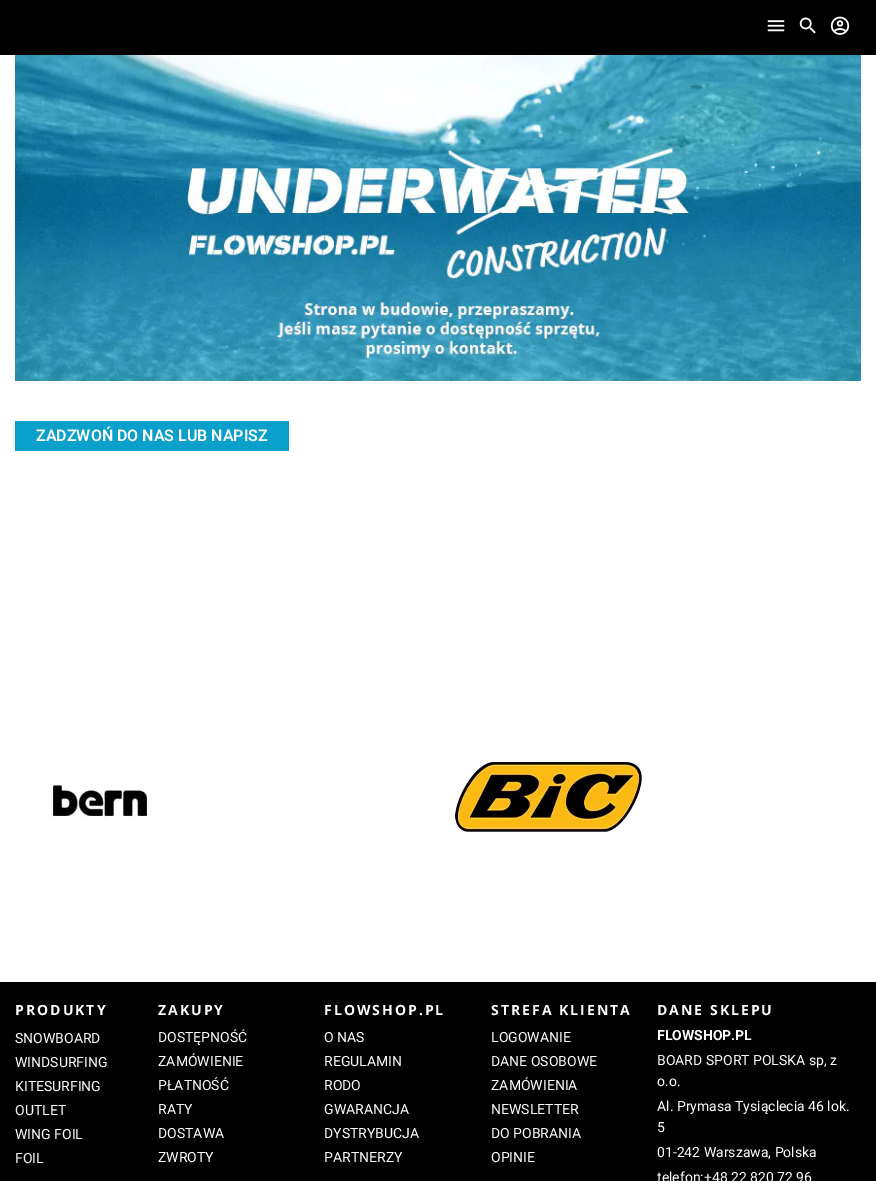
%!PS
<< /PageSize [876 1181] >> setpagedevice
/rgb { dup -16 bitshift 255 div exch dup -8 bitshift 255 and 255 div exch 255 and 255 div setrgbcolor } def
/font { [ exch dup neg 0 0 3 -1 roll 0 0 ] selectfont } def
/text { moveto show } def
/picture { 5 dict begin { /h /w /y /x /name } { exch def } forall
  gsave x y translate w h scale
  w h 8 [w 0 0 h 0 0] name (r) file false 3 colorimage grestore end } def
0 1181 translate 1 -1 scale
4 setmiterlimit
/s1 { /Roboto-SemiBold 16 font 16#FFFFFF rgb } def
/s2 { /Roboto-Regular 14 font 16#FFFFFF rgb } def
/s3 { /Roboto-Bold 14 font 16#FFFFFF rgb } def
16#FFFFFF rgb
0 0 876 1181 rectfill
16#000000 rgb
0 0 876 55 rectfill
(pic1.raw) 767 20 18 12 picture
(pic2.raw) 799 17 17 17 picture
(pic3.raw) 830 16 20 19 picture
(pic4.raw) 15 55 846 326 picture
16#0BA0CB rgb
15 421 274 30 rectfill
s1
(ZADZWOŃ DO NAS LUB NAPISZ) 36 441 text
(pic5.raw) 52 782 96 39 picture
(pic6.raw) 454 762 190 70 picture
16#000000 rgb
0 982 876 199 rectfill
/OpenSans-Bold 14 font
16#FFFFFF rgb
15 1015 moveto 2 0 (PRODUKTY) ashow
s2
(SNOWBOARD) 15 1043 text
(WINDSURFING) 15 1067 text
(KITESURFING) 15 1091 text
(OUTLET) 15 1115 text
(WING FOIL) 15 1139 text
(FOIL) 15 1163 text
/OpenSans-Bold 14 font
158 1015 moveto 2 0 (ZAKUPY) ashow
s2
(DOSTĘPNOŚĆ) 158 1042 text
(ZAMÓWIENIE) 158 1066 text
(PŁATNOŚĆ) 158 1090 text
(RATY) 158 1114 text
(DOSTAWA) 158 1138 text
(ZWROTY) 158 1162 text
/OpenSans-Bold 14 font
324 1015 moveto 2 0 (FLOWSHOP.PL) ashow
s2
(O NAS) 324 1042 text
(REGULAMIN) 324 1066 text
(RODO) 324 1090 text
(GWARANCJA) 324 1114 text
(DYSTRYBUCJA) 324 1138 text
(PARTNERZY) 324 1162 text
/OpenSans-Bold 14 font
491 1015 moveto 2 0 (STREFA KLIENTA) ashow
s2
(LOGOWANIE) 491 1042 text
(DANE OSOBOWE) 491 1066 text
(ZAMÓWIENIA) 491 1090 text
(NEWSLETTER) 491 1114 text
(DO POBRANIA) 491 1138 text
(OPINIE) 491 1162 text
/OpenSans-Bold 14 font
657 1015 moveto 2 0 (DANE SKLEPU) ashow
s3
(FLOWSHOP.PL) 657 1040 text
s2
(BOARD SPORT POLSKA sp, z) 657 1065 text
(o.o.) 657 1086 text
(Al. Prymasa Tysiąclecia 46 lok.) 657 1111 text
(5) 657 1132 text
(01-242 Warszawa, Polska) 657 1157 text
(telefon:+48 22 820 72 96) 657 1182 text
showpage
